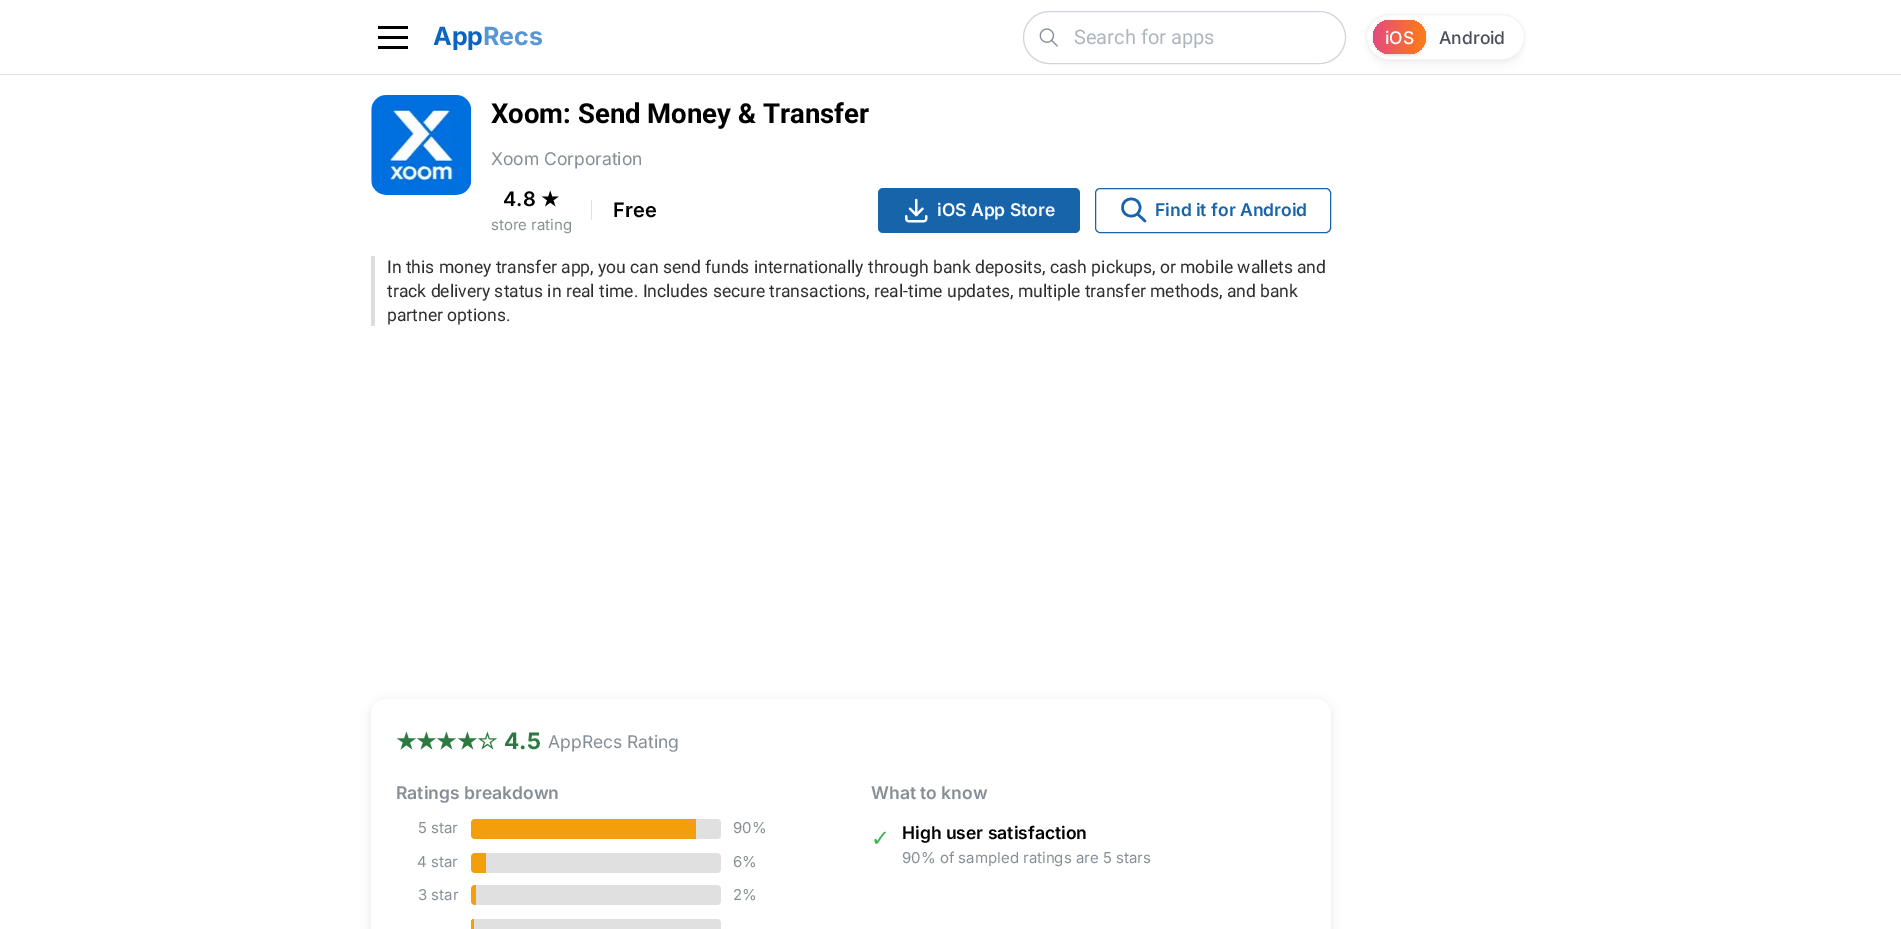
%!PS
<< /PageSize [1901 929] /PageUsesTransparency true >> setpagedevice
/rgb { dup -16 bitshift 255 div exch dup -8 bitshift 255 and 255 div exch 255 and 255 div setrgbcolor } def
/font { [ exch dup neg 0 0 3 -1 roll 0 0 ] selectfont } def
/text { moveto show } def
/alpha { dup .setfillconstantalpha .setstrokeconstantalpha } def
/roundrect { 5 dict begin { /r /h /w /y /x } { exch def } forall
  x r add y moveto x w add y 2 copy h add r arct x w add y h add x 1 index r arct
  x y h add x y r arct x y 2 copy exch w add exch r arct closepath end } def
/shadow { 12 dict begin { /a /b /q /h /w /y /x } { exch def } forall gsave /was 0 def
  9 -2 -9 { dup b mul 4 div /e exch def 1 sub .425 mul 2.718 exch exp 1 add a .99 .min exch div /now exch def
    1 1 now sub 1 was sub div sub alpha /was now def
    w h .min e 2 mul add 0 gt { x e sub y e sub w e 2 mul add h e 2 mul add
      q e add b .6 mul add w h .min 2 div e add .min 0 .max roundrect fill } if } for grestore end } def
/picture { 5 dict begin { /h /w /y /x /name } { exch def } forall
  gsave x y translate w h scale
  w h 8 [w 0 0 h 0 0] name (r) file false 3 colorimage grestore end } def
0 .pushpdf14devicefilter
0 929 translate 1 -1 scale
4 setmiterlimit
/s1 { /Inter-Bold 25 font 16#0A65C1 rgb } def
/s2 { /Inter-Bold 25 font 16#5896D5 rgb } def
/s3 { /Roboto-Regular 20 font 16#ADB5BD rgb } def
/s4 { /Inter-Medium 17.5 font 16#FFFFFF rgb } def
/s5 { /Inter-Medium 17.5 font 16#495057 rgb } def
/s6 { /Roboto-Bold 27.5 font 16#000000 rgb } def
/s7 { /Inter-Regular 17.5 font 16#868E96 rgb } def
/s8 { /Inter-SemiBold 20 font 16#000000 rgb } def
/s9 { /DejaVuSans-Bold 20 font 16#000000 rgb } def
/s10 { /Inter-Regular 15 font 16#868E96 rgb } def
/s11 { /Inter-SemiBold 17.5 font 16#FFFFFF rgb } def
/s12 { /Inter-SemiBold 17.5 font 16#1864AB rgb } def
/s13 { /Roboto-Regular 17.5 font 16#2E2E2E rgb } def
/s14 { /DejaVuSans-Bold 22.5 font 16#2B7A3F rgb } def
/s15 { /Inter-Bold 22.5 font 16#2B7A3F rgb } def
/s16 { /Inter-SemiBold 17.5 font 16#868E96 rgb } def
/s17 { /DejaVuSans-Regular 22.5 font 16#37B24D rgb } def
/s18 { /Inter-SemiBold 17.5 font 16#000000 rgb } def
16#FFFFFF rgb
0 0 1901 929 rectfill
16#DEE2E6 rgb
0 74 1901 1 rectfill
16#000000 rgb
378 36 30 3 rectfill
378 26 30 3 rectfill
378 46 30 3 rectfill
s1
(App) 433 45 text
s2
(Recs) 483 45 text
16#CED4DA rgb
1023.5 11.5 322 52 26 roundrect stroke
(pic1.raw) 1039 28 19 19 picture
s3
(Search for apps) 1074 44 text
16#000000 rgb
1373 33 146 33 16.5 6 0.04 shadow
1366 15 159 46 23 2 0.05 shadow
16#FFFFFF rgb
1366.5 14.5 158 45 22.5 roundrect gsave fill grestore
16#F1F3F5 rgb
stroke
16#000000 rgb
1373 21 53 34 17 1 0.1 shadow
1373 21 53 34 17 2 0.05 shadow
gsave 1373 20 53 34 17 roundrect clip newpath
<< /ShadingType 2 /ColorSpace /DeviceRGB /Coords [1373 37 1426 37] /Extend [true true] /Function << /FunctionType 2 /Domain [0 1] /C0 [0.902 0.286 0.502] /C1 [0.992 0.494 0.078] /N 1 >> >> shfill grestore
s4
(iOS) 1385 44 text
s5
(Android) 1439 44 text
(pic2.raw) 371 95 101 100 picture
s6
(Xoom: Send Money & Transfer) 491 123 text
s7
(Xoom Corporation) 491 165 text
s8
(4.8) 503 206 text
s9
(★) 541 206 text
s10
(store rating) 491 230 text
16#DEE2E6 rgb
591 200 1 20 rectfill
s8
(Free) 613 217 text
16#1864AB rgb
878 188 202 45 5 roundrect fill
(pic3.raw) 905 198 23 25 picture
s11
(iOS App Store) 937 216 text
16#1864AB rgb
1095.5 188.5 235 44 4.5 roundrect stroke
2.5 setlinewidth
1 setlinecap
1 setlinejoin
1122.5 207.5 moveto 1122.5 219 1140 219 1140 207.5 curveto 1140 196 1122.5 196 1122.5 207.5 curveto 1145 221 moveto 1137.5 214 lineto stroke
(Find it for Android) 1155 216 text
16#DDDDDD rgb
371 256 4 70 rectfill
s13
(In this money transfer app, you can send funds internationally through bank deposits, cash pickups, or mobile wallets and) 387 273 text
(track delivery status in real time. Includes secure transactions, real-time updates, multiple transfer methods, and bank) 387 297 text
(partner options.) 387 321 text
16#000000 rgb
371 701 960 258 15 5 0.1 shadow
16#FFFFFF rgb
371 699 960 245 15 roundrect fill
s14
(★★★★☆) 396 749 text
s15
(4.5) 504 749 text
s7
(AppRecs Rating) 548 748 text
s16
(Ratings breakdown) 396 799 text
s10
(5 star) 418 833 text
16#E0E0E0 rgb
471 819 250 20 4 roundrect fill
16#F59E0B rgb
475 819 moveto 696 819 lineto 696 839 lineto 475 839 lineto 473 839 471 837 471 835 curveto 471 823 lineto 471 821 473 819 475 819 curveto closepath fill
s10
(90%) 733 833 text
(4 star) 417 867 text
16#E0E0E0 rgb
471 853 250 20 4 roundrect fill
16#F59E0B rgb
475 853 moveto 486 853 lineto 486 873 lineto 475 873 lineto 473 873 471 871 471 869 curveto 471 857 lineto 471 855 473 853 475 853 curveto closepath fill
s10
(6%) 733 867 text
(3 star) 418 900 text
16#E0E0E0 rgb
471 885 250 20 4 roundrect fill
16#F59E0B rgb
475 885 moveto 476 885 lineto 476 905 lineto 475 905 lineto 473 905 471 903 471 901 curveto 471 889 lineto 471 887 473 885 475 885 curveto closepath fill
s10
(2%) 733 900 text
16#E0E0E0 rgb
471 919 250 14 4 roundrect fill
gsave
471 919 250 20 4 roundrect clip newpath
16#F59E0B rgb
471 919 3 10 rectfill
grestore
s16
(What to know) 871 799 text
s17
(✓) 871 846 text
s18
(High user satisfaction) 902 839 text
s10
(90% of sampled ratings are 5 stars) 902 863 text
.poppdf14devicefilter showpage
